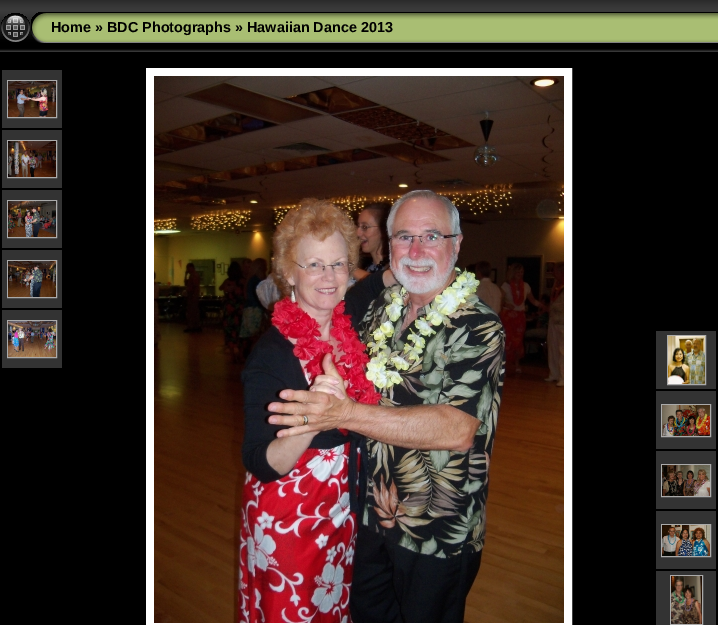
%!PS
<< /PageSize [718 625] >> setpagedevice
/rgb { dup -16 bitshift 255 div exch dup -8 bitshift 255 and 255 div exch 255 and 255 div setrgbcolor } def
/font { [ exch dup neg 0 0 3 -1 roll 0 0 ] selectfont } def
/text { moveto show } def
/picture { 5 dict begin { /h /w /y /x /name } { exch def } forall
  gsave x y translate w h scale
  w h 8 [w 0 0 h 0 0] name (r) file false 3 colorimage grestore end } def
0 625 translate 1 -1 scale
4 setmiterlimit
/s1 { /LiberationSans-Bold 14.4 font 16#000000 rgb } def
16#000000 rgb
0 0 718 625 rectfill
(pic1.raw) 0 0 718 52 picture
(pic2.raw) 1 13 29 29 picture
(pic3.raw) 31 12 20 31 picture
(pic4.raw) 51 12 667 31 picture
s1
(Home » BDC Photographs » Hawaiian Dance 2013) 51 32 text
16#333333 rgb
2 70 60 58 rectfill
16#AAAAAA rgb
7.5 80.5 49 37 rectstroke
(pic5.raw) 8 81 48 36 picture
16#333333 rgb
2 130 60 58 rectfill
16#AAAAAA rgb
7.5 140.5 49 37 rectstroke
(pic6.raw) 8 141 48 36 picture
16#333333 rgb
2 190 60 58 rectfill
16#AAAAAA rgb
7.5 200.5 49 37 rectstroke
(pic7.raw) 8 201 48 36 picture
16#333333 rgb
2 250 60 58 rectfill
16#AAAAAA rgb
7.5 260.5 49 37 rectstroke
(pic8.raw) 8 261 48 36 picture
16#333333 rgb
2 310 60 58 rectfill
16#AAAAAA rgb
7.5 320.5 49 37 rectstroke
(pic9.raw) 8 321 48 36 picture
16#FFFFFF rgb
8 setlinewidth
150 72 418 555 rectstroke
(pic10.raw) 154 76 410 547 picture
16#333333 rgb
656 331 60 58 rectfill
16#AAAAAA rgb
1 setlinewidth
667.5 335.5 38 49 rectstroke
(pic11.raw) 668 336 37 48 picture
16#333333 rgb
656 391 60 58 rectfill
16#AAAAAA rgb
661.5 404.5 49 32 rectstroke
(pic12.raw) 662 405 48 31 picture
16#333333 rgb
656 451 60 58 rectfill
16#AAAAAA rgb
661.5 464.5 49 32 rectstroke
(pic13.raw) 662 465 48 31 picture
16#333333 rgb
656 511 60 58 rectfill
16#AAAAAA rgb
661.5 524.5 49 32 rectstroke
(pic14.raw) 662 525 48 31 picture
16#333333 rgb
656 571 60 54 rectfill
16#AAAAAA rgb
670.5 575.5 32 49 rectstroke
(pic15.raw) 671 576 31 48 picture
showpage
